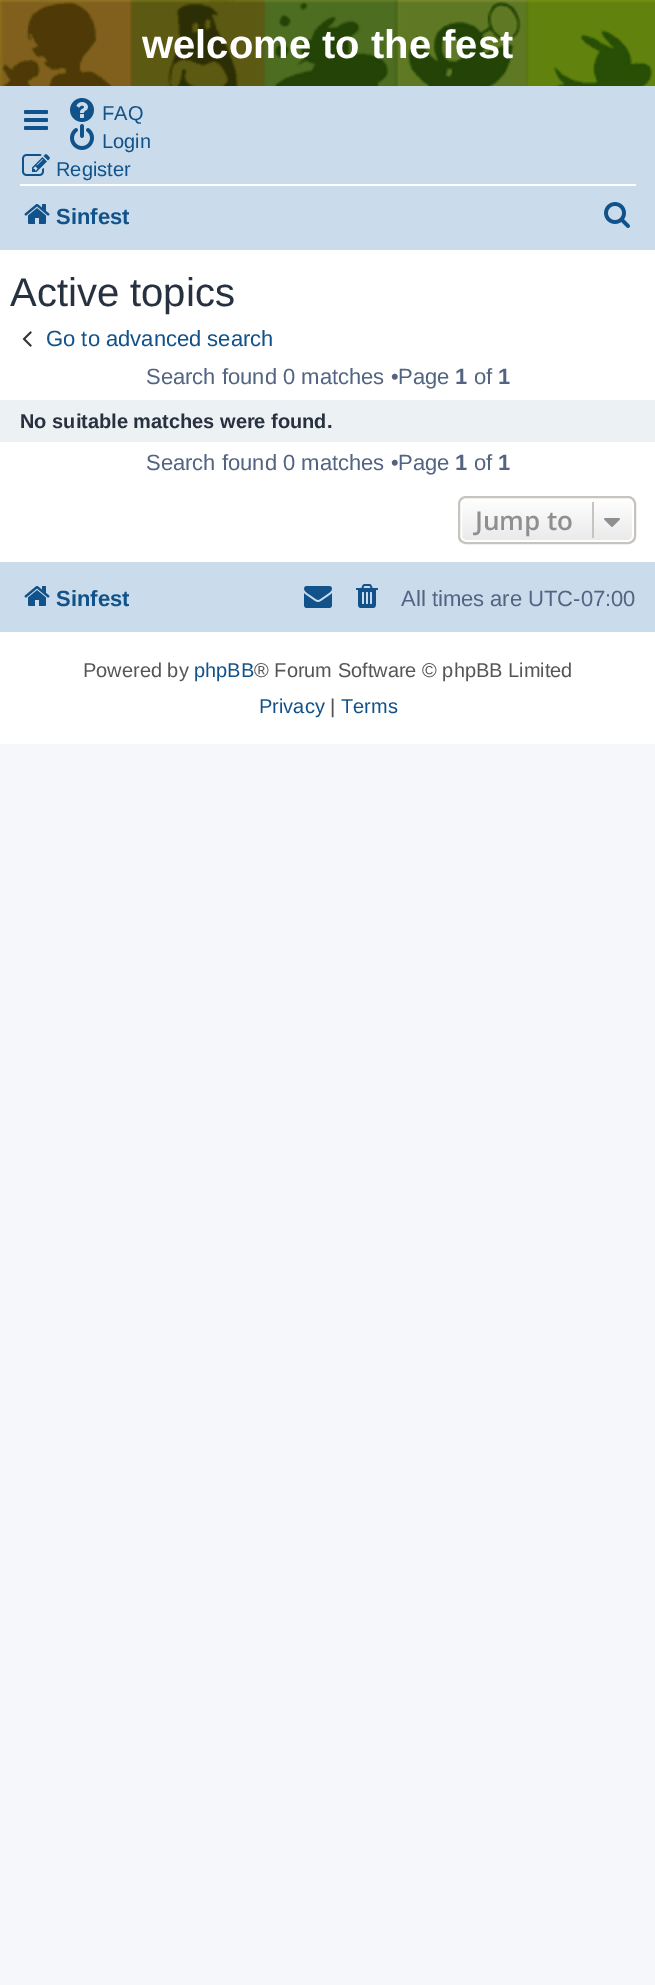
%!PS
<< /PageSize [655 1985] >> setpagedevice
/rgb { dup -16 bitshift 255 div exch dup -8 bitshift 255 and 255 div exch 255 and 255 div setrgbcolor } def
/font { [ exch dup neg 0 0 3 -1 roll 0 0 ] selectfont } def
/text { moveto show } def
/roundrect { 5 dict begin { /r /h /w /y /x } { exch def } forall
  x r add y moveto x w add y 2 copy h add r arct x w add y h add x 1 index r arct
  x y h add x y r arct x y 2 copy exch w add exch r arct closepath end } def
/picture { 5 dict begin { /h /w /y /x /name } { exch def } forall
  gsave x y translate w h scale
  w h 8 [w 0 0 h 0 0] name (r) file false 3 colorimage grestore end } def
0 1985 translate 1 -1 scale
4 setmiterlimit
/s1 { /LiberationSans-Bold 40 font 16#FFFFFF rgb } def
/s2 { /LiberationSans-Regular 20 font 16#105289 rgb } def
/s3 { /LiberationSans-Bold 22 font 16#105289 rgb } def
/s4 { /LiberationSans-Regular 40 font 16#28313F rgb } def
/s5 { /LiberationSans-Regular 22 font 16#105289 rgb } def
/s6 { /LiberationSans-Regular 22 font 16#536482 rgb } def
/s7 { /LiberationSans-Bold 22 font 16#536482 rgb } def
/s8 { /LiberationSans-Bold 20 font 16#28313F rgb } def
/s9 { /OpenSans-SemiBold 26 font 16#8F8F8F rgb } def
/s10 { /LiberationSans-Regular 20 font 16#555555 rgb } def
16#F5F7FA rgb
0 0 655 1985 rectfill
16#FFFFFF rgb
0 250 655 494 rectfill
(pic1.raw) 0 0 655 86 picture
s1
(welcome to the fest) 142 58 text
16#CADCEB rgb
0 86 655 164 rectfill
(pic2.raw) 24 110 24 20 picture
(pic3.raw) 70 98 24 24 picture
s2
(FAQ) 102 120 text
(pic4.raw) 70 124 24 26 picture
(Login) 102 148 text
(pic5.raw) 22 154 28 22 picture
(Register) 56 176 text
16#FFFFFF rgb
20 184 616 2 rectfill
(pic6.raw) 24 204 26 20 picture
s3
(Sinfest) 56 224 text
(pic7.raw) 604 202 26 26 picture
s4
(Active topics) 10 306 text
(pic8.raw) 22 331 10 16 picture
s5
(Go to advanced search) 46 346 text
s6
(Search found 0 matches •Page) 146 384 text
s7
(1) 455 384 text
s6
(of) 474 384 text
s7
(1) 498 384 text
16#ECF1F3 rgb
0 400 655 42 rectfill
s8
(No suitable matches were found.) 20 428 text
s6
(Search found 0 matches •Page) 146 470 text
s7
(1) 455 470 text
s6
(of) 474 470 text
s7
(1) 498 470 text
gsave
458 496 178 48 8 roundrect clip newpath
gsave 458 498 moveto 636 498 lineto 636 542 lineto 458 542 lineto closepath clip newpath
<< /ShadingType 2 /ColorSpace /DeviceRGB /Coords [547 498 547 542] /Extend [true true] /Function << /FunctionType 2 /Domain [0 1] /C0 [1 1 1] /C1 [0.914 0.914 0.914] /N 1 >> >> shfill grestore
grestore
16#FFFFFF rgb
2 setlinewidth
461 499 172 42 5 roundrect stroke
16#C7C3BF rgb
459 497 176 46 7 roundrect stroke
s9
(Jump to) 475 530 text
16#C7C3BF rgb
592 502 2 36 rectfill
(pic9.raw) 604 518 16 9 picture
16#CADCEB rgb
0 562 655 70 rectfill
(pic6.raw) 24 586 26 20 picture
s3
(Sinfest) 56 606 text
(pic10.raw) 304 586 28 22 picture
(pic11.raw) 356 584 22 24 picture
s6
(All times are UTC-07:00) 401 606 text
s10
(Powered by) 83 677 text
s2
(phpBB) 194 677 text
s10
(® Forum Software © phpBB Limited) 254 677 text
s2
(Privacy) 259 713 text
s10
(|) 330 713 text
s2
(Terms) 341 713 text
showpage
